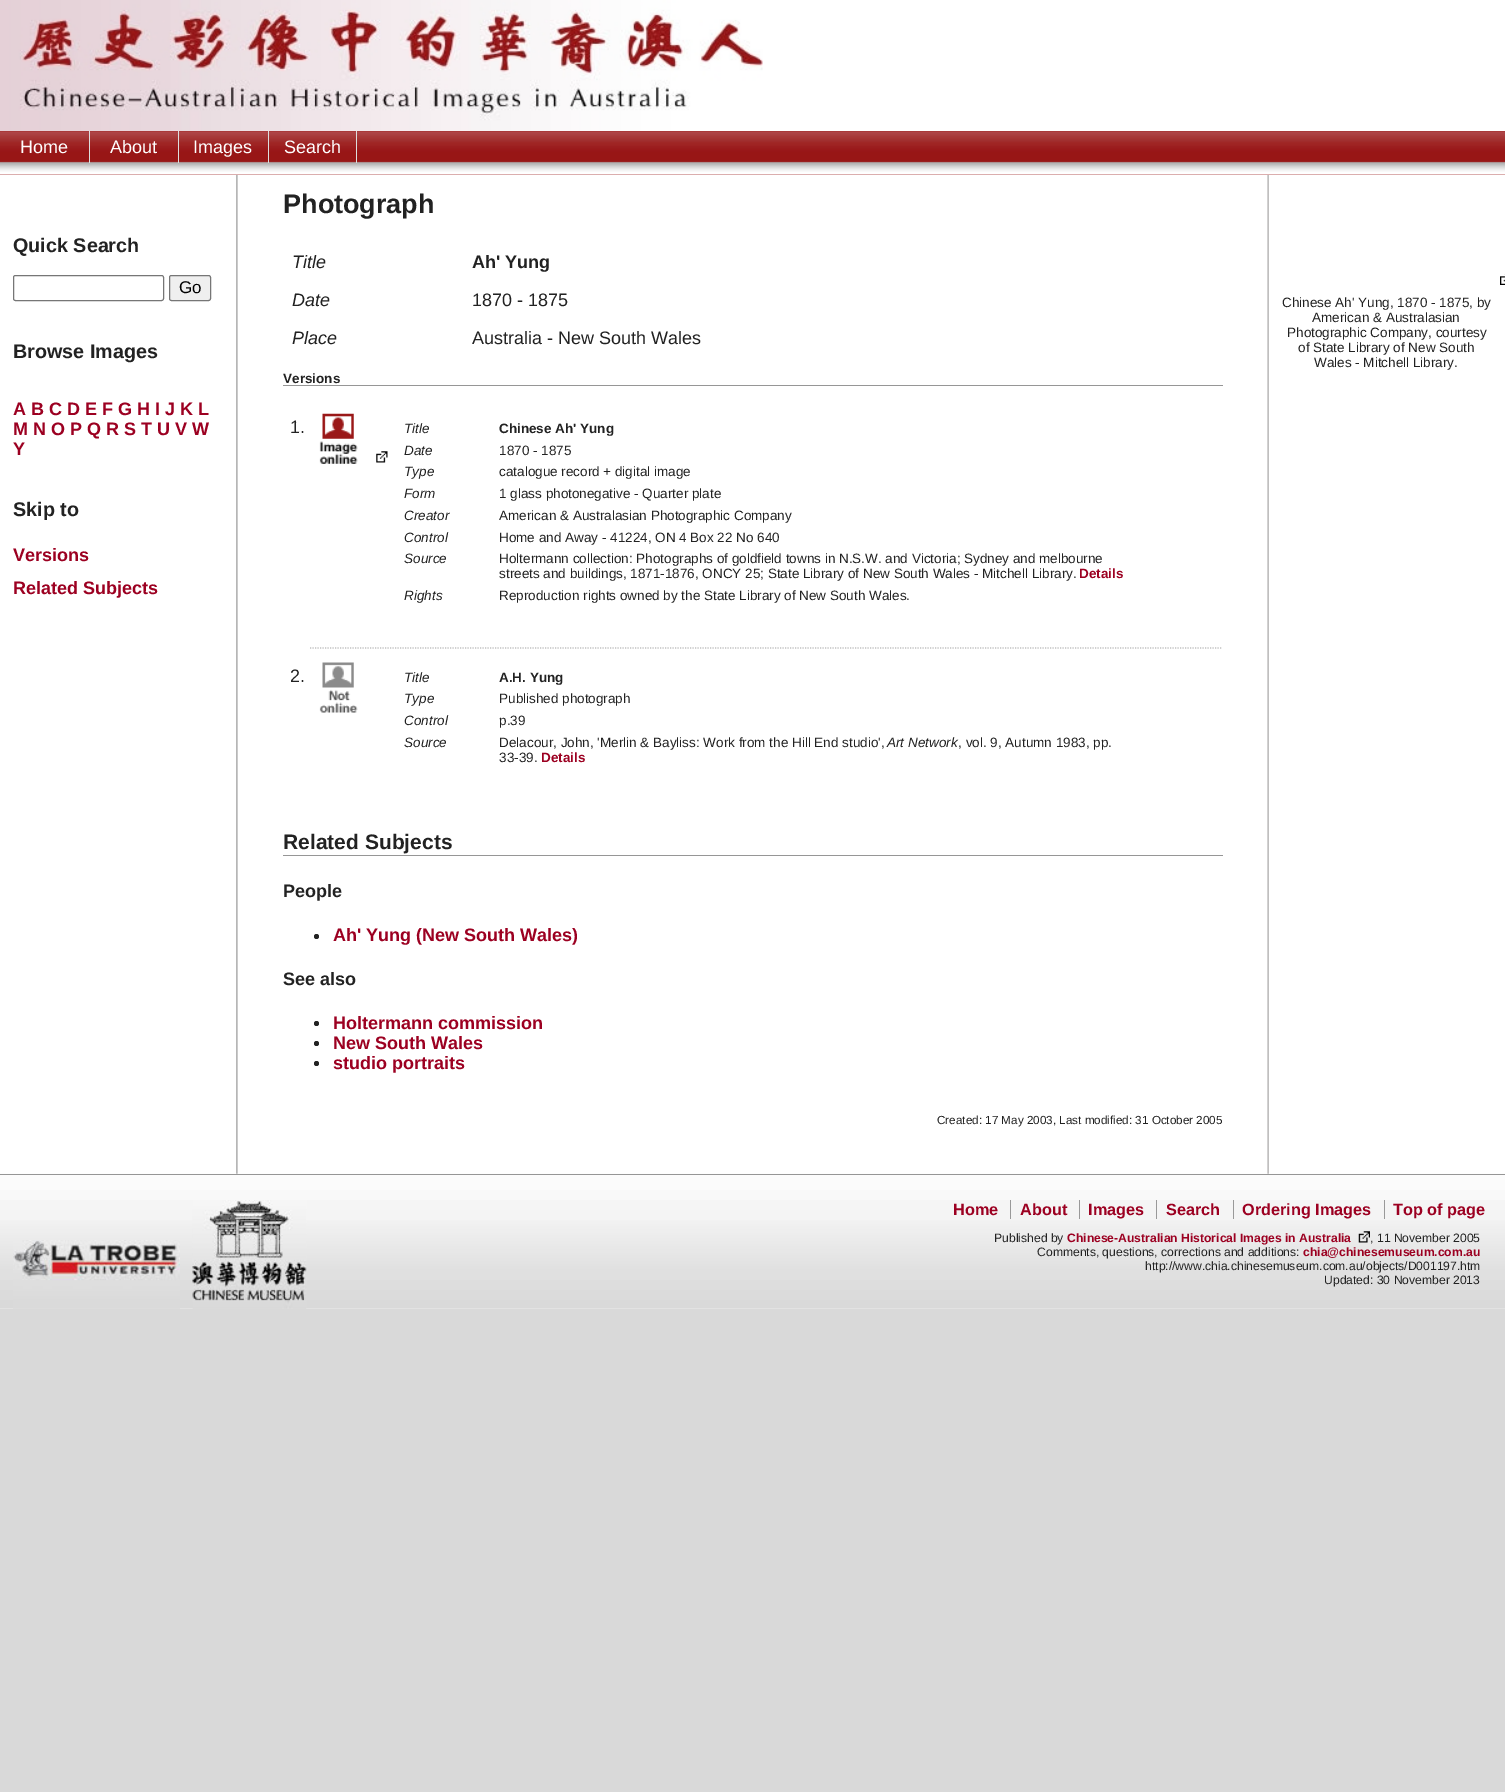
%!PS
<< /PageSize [1505 1792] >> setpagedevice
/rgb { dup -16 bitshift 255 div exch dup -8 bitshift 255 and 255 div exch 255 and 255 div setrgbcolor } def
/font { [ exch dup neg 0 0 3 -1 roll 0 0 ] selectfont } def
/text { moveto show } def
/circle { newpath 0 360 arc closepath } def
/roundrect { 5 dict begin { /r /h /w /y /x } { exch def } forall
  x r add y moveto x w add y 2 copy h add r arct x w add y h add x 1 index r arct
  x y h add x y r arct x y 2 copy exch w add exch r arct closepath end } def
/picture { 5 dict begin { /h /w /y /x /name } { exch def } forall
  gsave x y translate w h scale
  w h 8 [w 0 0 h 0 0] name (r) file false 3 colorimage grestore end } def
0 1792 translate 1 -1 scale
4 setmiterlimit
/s1 { /LiberationSans-Regular 18 font 16#FFFFFF rgb } def
/s2 { /LiberationSans-Bold 27 font 16#222222 rgb } def
/s3 { /LiberationSans-Bold 19.75 font 16#222222 rgb } def
/s4 { /LiberationSans-Regular 17 font 16#000000 rgb } def
/s5 { /LiberationSans-Bold 18 font 16#9C0021 rgb } def
/s6 { /LiberationSans-Italic 18 font 16#222222 rgb } def
/s7 { /LiberationSans-Bold 18 font 16#222222 rgb } def
/s8 { /LiberationSans-Regular 18 font 16#222222 rgb } def
/s9 { /LiberationSans-Bold 13.5 font 16#222222 rgb } def
/s10 { /LiberationSans-Italic 13.5 font 16#222222 rgb } def
/s11 { /LiberationSans-Regular 13.5 font 16#222222 rgb } def
/s12 { /LiberationSans-Bold 13.5 font 16#9C0021 rgb } def
/s13 { /LiberationSans-Bold 21 font 16#222222 rgb } def
/s14 { /LiberationSans-Regular 11.7 font 16#222222 rgb } def
/s15 { /LiberationSans-Bold 16.25 font 16#9C0021 rgb } def
/s16 { /LiberationSans-Regular 12.15 font 16#222222 rgb } def
/s17 { /LiberationSans-Bold 12.15 font 16#9C0021 rgb } def
16#D9D9D9 rgb
0 0 1505 1792 rectfill
16#FFFFFF rgb
762 0 743 131 rectfill
(pic1.raw) 0 0 763 132 picture
(pic2.raw) 0 131 1505 44 picture
16#DDDDDD rgb
89 131 1 32 rectfill
s1
(Home) 20 153 text
16#DDDDDD rgb
178 131 1 32 rectfill
s1
(About) 110 153 text
16#DDDDDD rgb
268 131 1 32 rectfill
s1
(Images) 193 153 text
16#DDDDDD rgb
356 131 1 32 rectfill
s1
(Search) 284 153 text
0 175 1505 1134 rectfill
(pic3.raw) 236 175 2 1134 picture
(pic4.raw) 1267 175 2 1134 picture
s2
(Photograph) 283 213 text
s3
(Quick Search) 13 252 text
16#767676 rgb
13.5 275.5 150 25 2 roundrect stroke
16#EFEFEF rgb
169.5 275.5 41 25 2 roundrect gsave fill grestore
16#767676 rgb
stroke
s4
(Go) 179 293 text
s3
(Browse Images) 13 358 text
s5
(A B C D E F G H I J K L) 13 415 text
(M N O P Q R S T U V W) 13 435 text
(Y) 13 455 text
s3
(Skip to) 13 516 text
s5
(Versions) 13 561 text
(Related Subjects) 13 594 text
s6
(Title) 292 268 text
s7
(Ah' Yung) 472 268 text
s6
(Date) 292 306 text
s8
(1870 - 1875) 472 306 text
s6
(Place) 292 344 text
s8
(Australia - New South Wales) 472 344 text
16#969696 rgb
283 385 940 1 rectfill
s9
(Versions) 283 383 text
s8
(1.) 290 433 text
(pic5.raw) 319 413 39 51 picture
(pic6.raw) 376 451 12 12 picture
s10
(Title) 404 433 text
s9
(Chinese Ah' Yung) 499 433 text
s10
(Date) 404 455 text
s11
(1870 - 1875) 499 455 text
s10
(Type) 404 476 text
s11
(catalogue record + digital image) 499 476 text
s10
(Form) 404 498 text
s11
(1 glass photonegative - Quarter plate) 499 498 text
s10
(Creator) 404 520 text
s11
(American & Australasian Photographic Company) 499 520 text
s10
(Control) 404 542 text
s11
(Home and Away - 41224, ON 4 Box 22 No 640) 499 542 text
s10
(Source) 404 563 text
s11
(Holtermann collection: Photographs of goldfield towns in N.S.W. and Victoria; Sydney and melbourne) 499 563 text
(streets and buildings, 1871-1876, ONCY 25; State Library of New South Wales - Mitchell Library.) 499 578 text
s12
(Details) 1079 578 text
s10
(Rights) 404 600 text
s11
(Reproduction rights owned by the State Library of New South Wales.) 499 600 text
16#C0C0C0 rgb
1.2 setlinewidth
[1.25 1.25] 0 setdash
310 648 moveto 1222.5 648 lineto stroke
s8
(2.) 290 682 text
(pic7.raw) 319 662 39 51 picture
s10
(Title) 404 682 text
s9
(A.H. Yung) 499 682 text
s10
(Type) 404 703 text
s11
(Published photograph) 499 703 text
s10
(Control) 404 725 text
s11
(p.39) 499 725 text
s10
(Source) 404 747 text
s11
(Delacour, John, 'Merlin & Bayliss: Work from the Hill End studio',) 499 747 text
s10
(Art Network) 887 747 text
s11
(, vol. 9, Autumn 1983, pp.) 958 747 text
(33-39.) 499 762 text
s12
(Details) 541 762 text
16#969696 rgb
283 855 940 1 rectfill
s13
(Related Subjects) 283 849 text
s7
(People) 283 897 text
316.5 936.5 2.5 circle fill
s5
(Ah' Yung \(New South Wales\)) 333 941 text
s7
(See also) 283 985 text
316.5 1023.5 2.5 circle fill
s5
(Holtermann commission) 333 1029 text
16#222222 rgb
316.5 1043.5 2.5 circle fill
s5
(New South Wales) 333 1049 text
16#222222 rgb
316.5 1063.5 2.5 circle fill
s5
(studio portraits) 333 1069 text
s14
(Created: 17 May 2003, Last modified: 31 October 2005) 937 1124 text
(pic8.raw) 1500 274 5 11 picture
s11
(Chinese Ah' Yung, 1870 - 1875, by) 1282 307 text
(American & Australasian) 1312 322 text
(Photographic Company, courtesy) 1287 337 text
(of State Library of New South) 1298 352 text
(Wales - Mitchell Library.) 1314 367 text
(pic9.raw) 0 1173 1505 136 picture
16#969696 rgb
0 1174 1505 1 rectfill
(pic10.raw) 13 1240 167 69 picture
(pic11.raw) 192 1200 115 109 picture
s15
(Home) 953 1215 text
(About) 1020 1215 text
16#999999 rgb
1010 1200 1 19 rectfill
s15
(Images) 1088 1215 text
16#999999 rgb
1079 1200 1 19 rectfill
s15
(Search) 1166 1215 text
16#999999 rgb
1156 1200 1 19 rectfill
s15
(Ordering Images) 1242 1215 text
16#999999 rgb
1233 1200 1 19 rectfill
s15
(Top of page) 1393 1215 text
16#999999 rgb
1384 1200 1 19 rectfill
s16
(Published by) 994 1242 text
s17
(Chinese-Australian Historical Images in Australia) 1067 1242 text
(pic12.raw) 1358 1231 12 12 picture
s16
(, 11 November 2005) 1370 1242 text
(Comments, questions, corrections and additions:) 1037 1256 text
s17
(chia@chinesemuseum.com.au) 1303 1256 text
s16
(http://www.chia.chinesemuseum.com.au/objects/D001197.htm) 1145 1270 text
(Updated: 30 November 2013) 1324 1284 text
showpage
